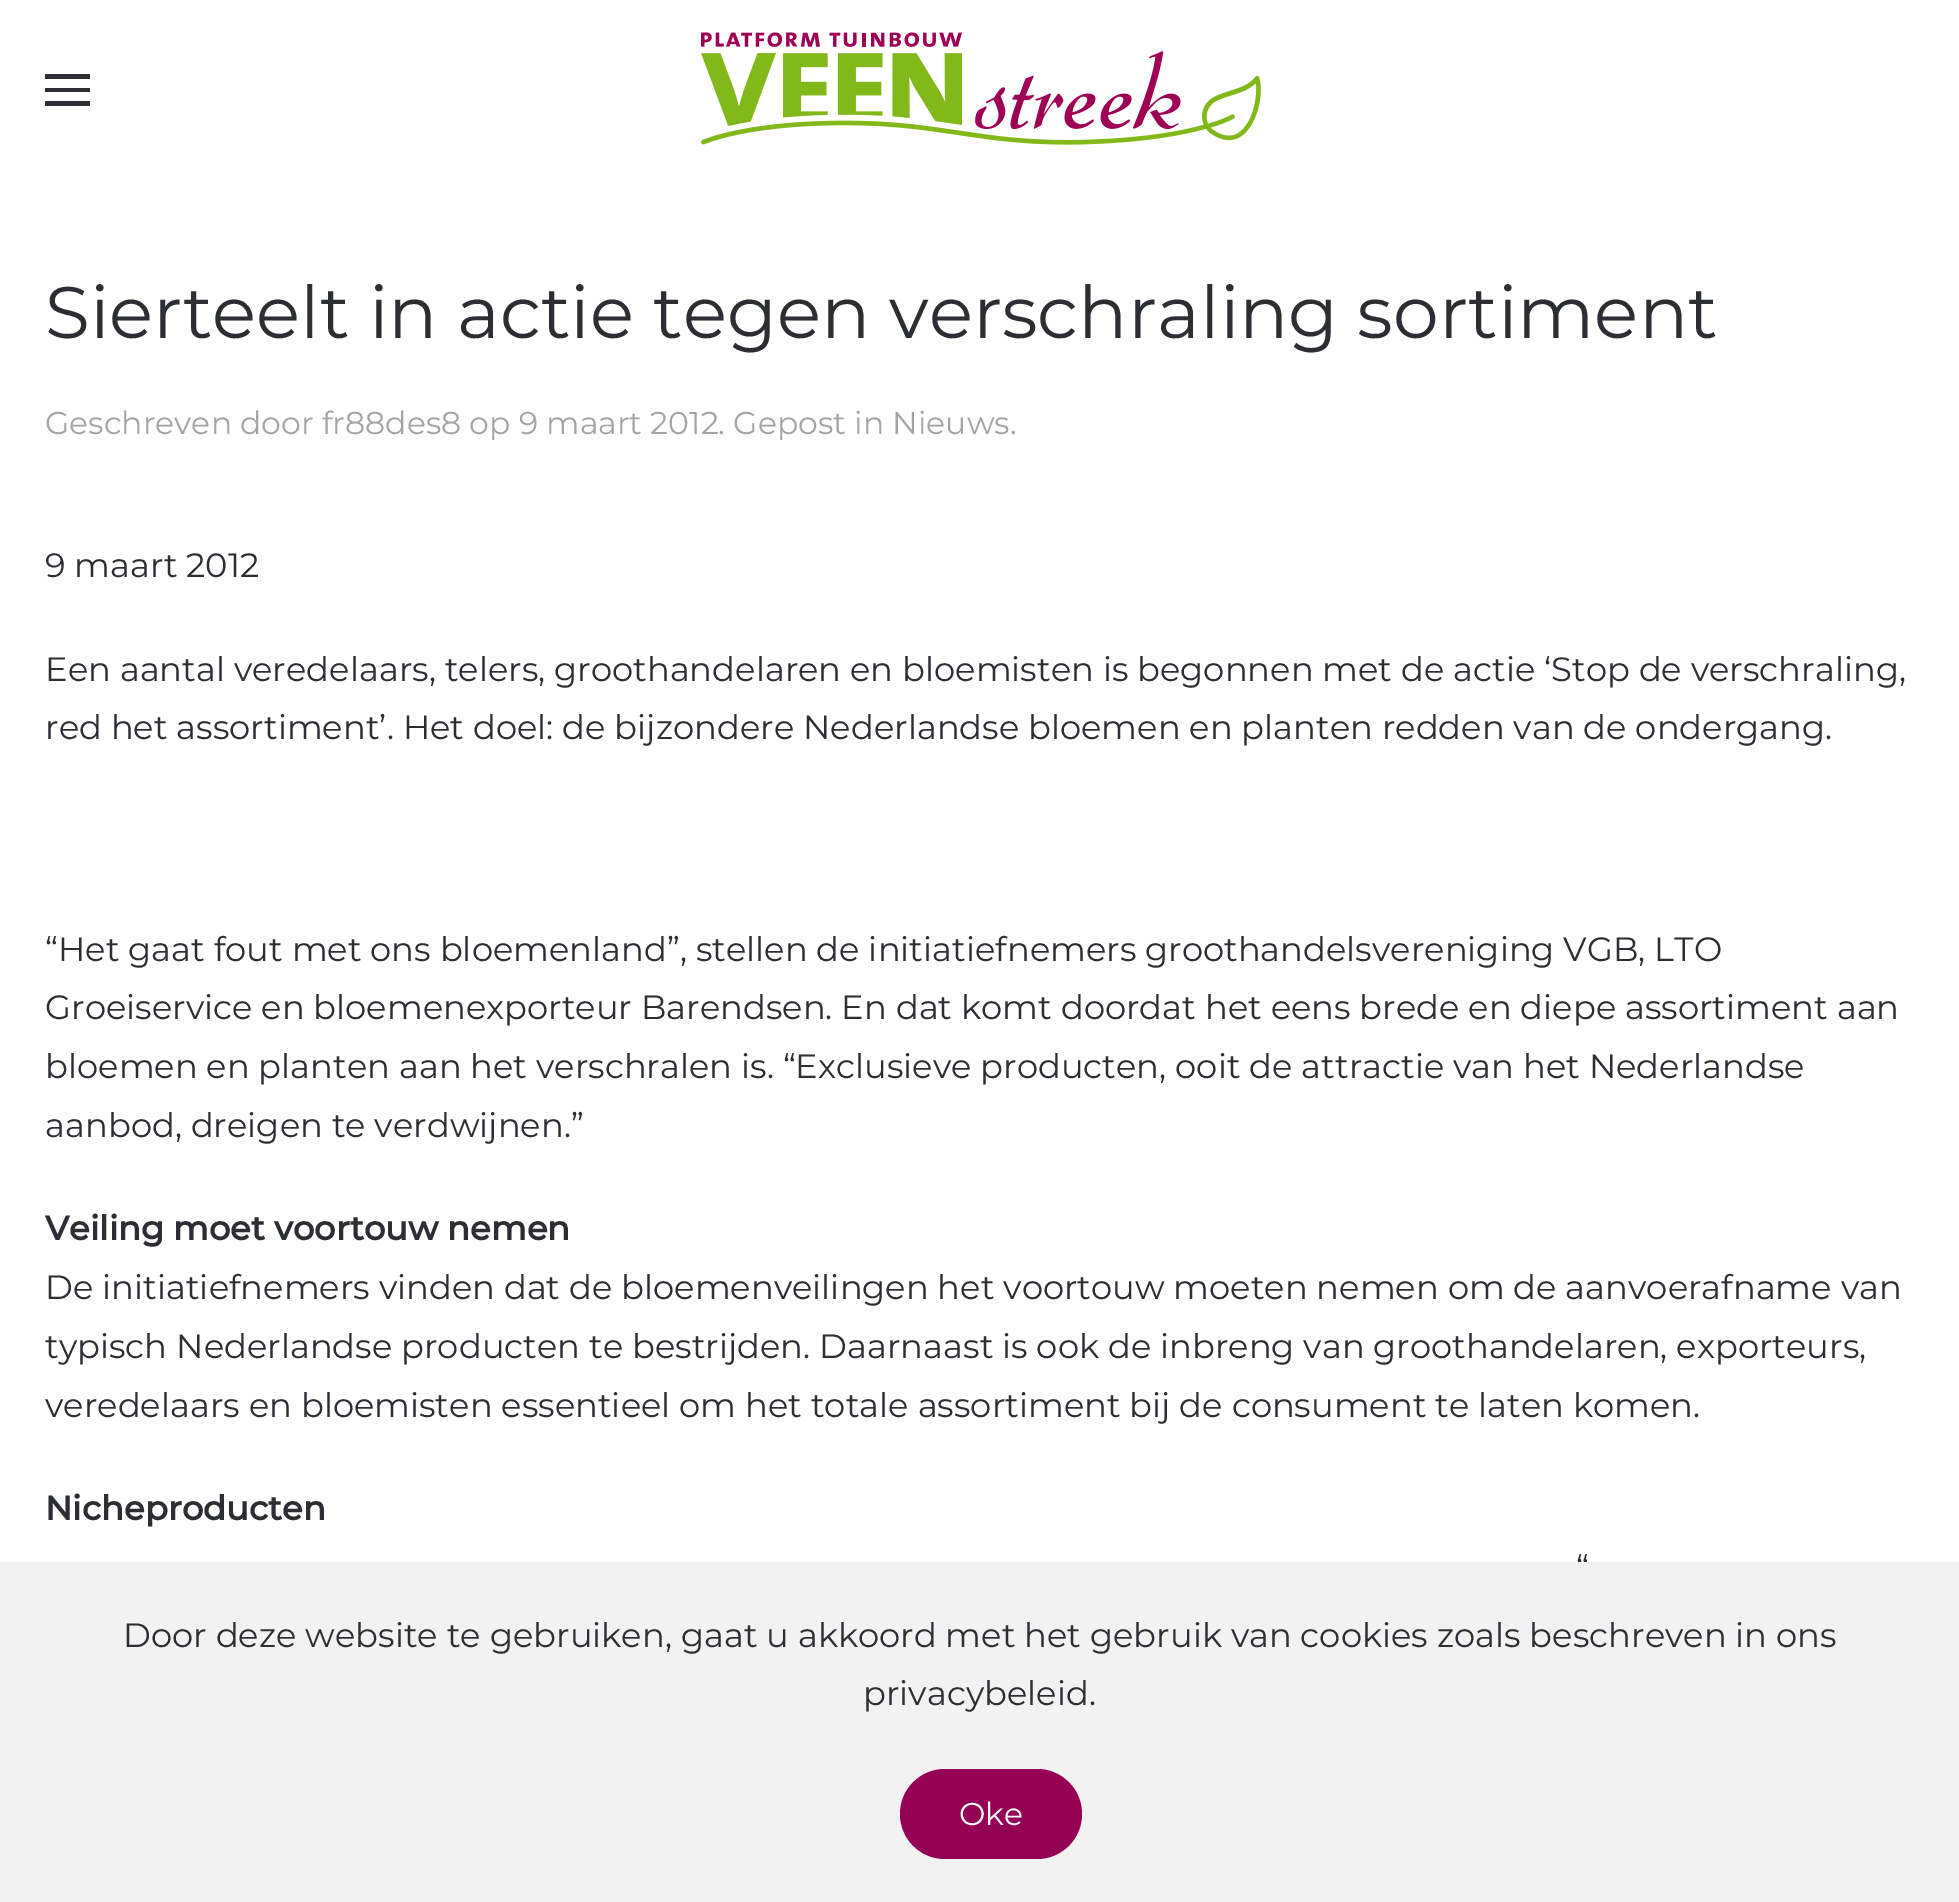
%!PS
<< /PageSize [1959 1902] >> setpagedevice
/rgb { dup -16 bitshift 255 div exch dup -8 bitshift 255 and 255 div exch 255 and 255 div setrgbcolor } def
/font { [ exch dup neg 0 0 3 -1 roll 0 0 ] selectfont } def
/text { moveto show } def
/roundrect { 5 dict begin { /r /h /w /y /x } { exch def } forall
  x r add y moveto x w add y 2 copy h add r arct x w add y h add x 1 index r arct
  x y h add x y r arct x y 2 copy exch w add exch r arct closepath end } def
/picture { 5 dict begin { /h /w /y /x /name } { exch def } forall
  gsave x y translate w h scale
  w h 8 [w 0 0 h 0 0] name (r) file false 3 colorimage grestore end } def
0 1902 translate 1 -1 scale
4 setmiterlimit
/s1 { /Montserrat-Thin 72.9 font 16#2D2E33 rgb } def
/s2 { /Montserrat-Thin 31.5 font 16#A3A4A8 rgb } def
/s3 { /Montserrat-Thin 33.75 font 16#2D2E33 rgb } def
/s4 { /Montserrat-Bold 33.75 font 16#2D2E33 rgb } def
/s5 { /Montserrat-Thin 31.5 font 16#FFFFFF rgb } def
16#FFFFFF rgb
0 0 1959 1902 rectfill
16#2D2E33 rgb
45 74 45 5 rectfill
45 88 45 4 rectfill
45 101 45 5 rectfill
(pic1.raw) 701 32 560 113 picture
s1
(Sierteelt in actie tegen verschraling sortiment) 45 338 text
s2
(Geschreven door fr88des8 op 9 maart 2012. Gepost in Nieuws.) 45 434 text
s3
(9 maart 2012) 45 577 text
(Een aantal veredelaars, telers, groothandelaren en bloemisten is begonnen met de actie ‘Stop de verschraling,) 45 681 text
(red het assortiment’. Het doel: de bijzondere Nederlandse bloemen en planten redden van de ondergang.) 45 739 text
(“Het gaat fout met ons bloemenland”, stellen de initiatiefnemers groothandelsvereniging VGB, LTO) 45 961 text
(Groeiservice en bloemenexporteur Barendsen. En dat komt doordat het eens brede en diepe assortiment aan) 45 1019 text
(bloemen en planten aan het verschralen is. “Exclusieve producten, ooit de attractie van het Nederlandse) 45 1078 text
(aanbod, dreigen te verdwijnen.”) 45 1137 text
s4
(Veiling moet voortouw nemen) 45 1240 text
s3
(De initiatiefnemers vinden dat de bloemenveilingen het voortouw moeten nemen om de aanvoerafname van) 45 1299 text
(typisch Nederlandse producten te bestrijden. Daarnaast is ook de inbreng van groothandelaren, exporteurs,) 45 1358 text
(veredelaars en bloemisten essentieel om het totale assortiment bij de consument te laten komen.) 45 1417 text
s4
(Nicheproducten) 45 1520 text
s3
(“) 1576 1579 text
16#F2F2F2 rgb
0 1562 1959 340 rectfill
s3
(Door deze website te gebruiken, gaat u akkoord met het gebruik van cookies zoals beschreven in ons) 123 1647 text
(privacybeleid.) 863 1705 text
16#950155 rgb
900 1769 182 90 45 roundrect fill
s5
(Oke) 959 1825 text
showpage
